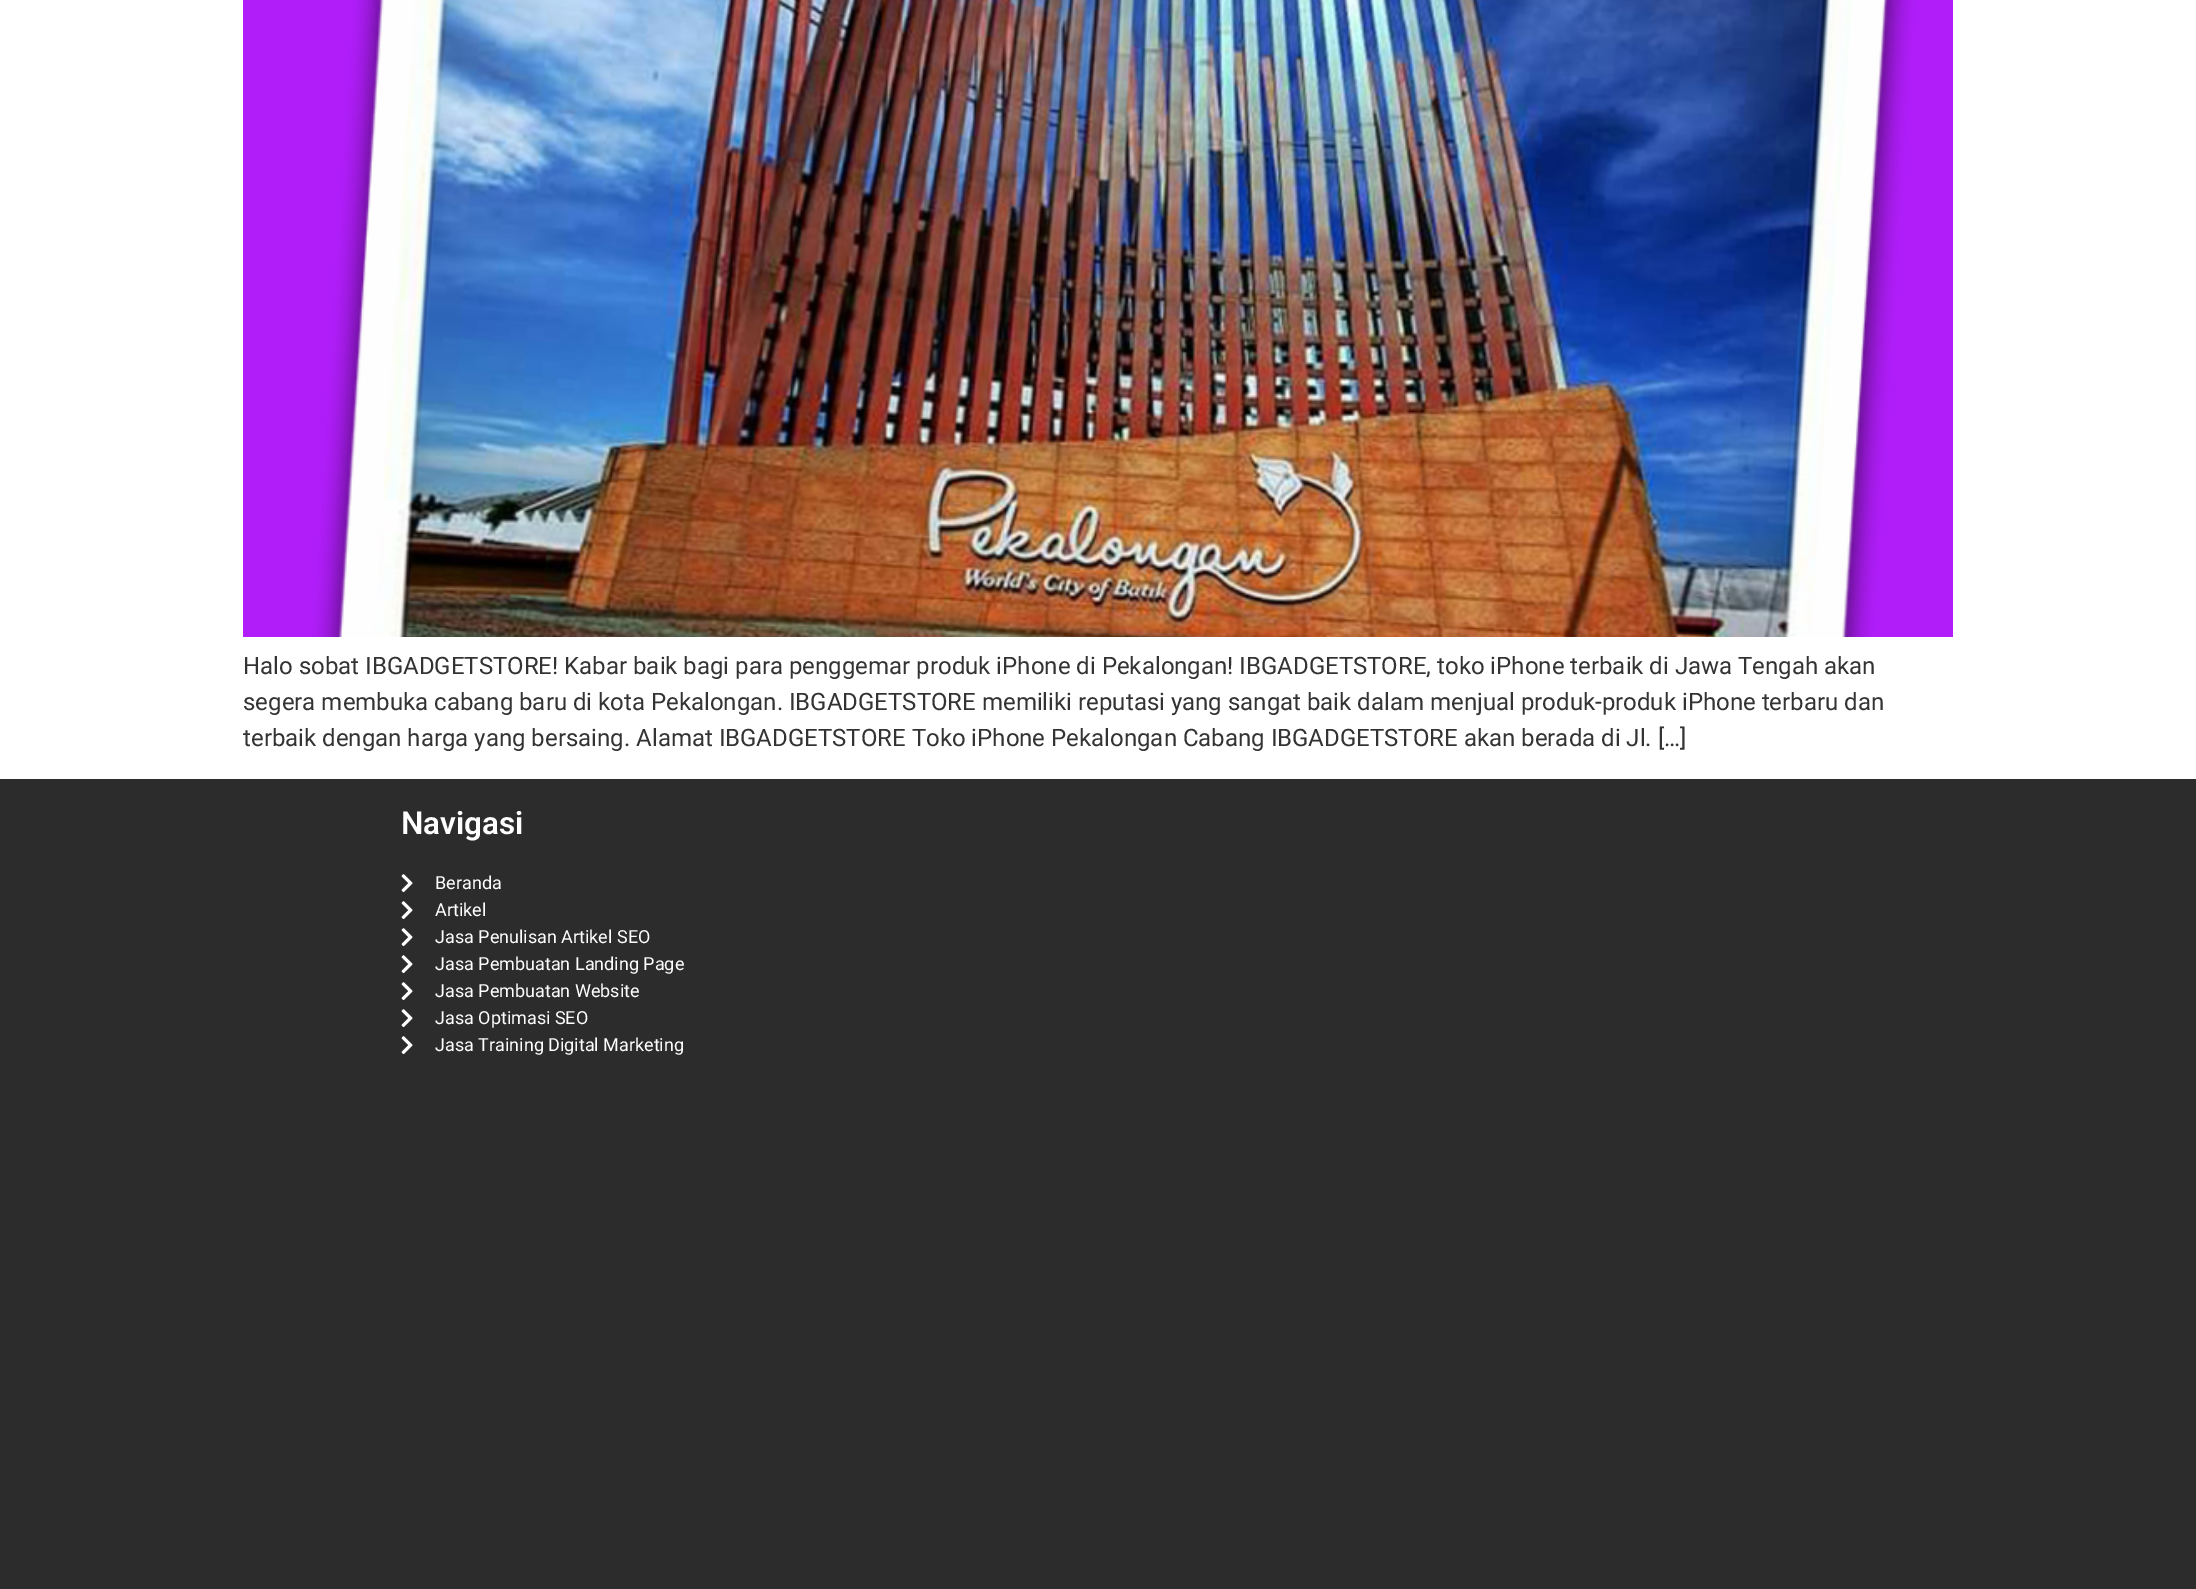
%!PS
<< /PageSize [2196 1589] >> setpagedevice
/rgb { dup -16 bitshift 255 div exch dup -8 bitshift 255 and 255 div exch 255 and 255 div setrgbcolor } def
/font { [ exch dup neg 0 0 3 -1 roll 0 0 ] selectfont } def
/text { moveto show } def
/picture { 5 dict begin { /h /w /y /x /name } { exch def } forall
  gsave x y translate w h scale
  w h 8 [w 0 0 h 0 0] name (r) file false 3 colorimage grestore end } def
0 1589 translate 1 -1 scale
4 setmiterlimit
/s1 { /Roboto-Regular 24 font 16#333333 rgb } def
/s2 { /Roboto-SemiBold 31.5 font 16#FFFFFF rgb } def
/s3 { /Roboto-Regular 18 font 16#FFFFFF rgb } def
16#FFFFFF rgb
0 0 2196 1589 rectfill
(pic1.raw) 243 0 1710 637 picture
s1
(Halo sobat IBGADGETSTORE! Kabar baik bagi para penggemar produk iPhone di Pekalongan! IBGADGETSTORE, toko iPhone terbaik di Jawa Tengah akan) 243 674 text
(segera membuka cabang baru di kota Pekalongan. IBGADGETSTORE memiliki reputasi yang sangat baik dalam menjual produk-produk iPhone terbaru dan) 243 710 text
(terbaik dengan harga yang bersaing. Alamat IBGADGETSTORE Toko iPhone Pekalongan Cabang IBGADGETSTORE akan berada di Jl. […]) 243 746 text
16#2C2C2C rgb
0 779 2196 810 rectfill
s2
(Navigasi) 401 834 text
(pic2.raw) 401 874 12 19 picture
s3
(Beranda) 435 889 text
(pic2.raw) 401 901 12 19 picture
(Artikel) 435 916 text
(pic2.raw) 401 928 12 19 picture
(Jasa Penulisan Artikel SEO) 435 943 text
(pic2.raw) 401 955 12 19 picture
(Jasa Pembuatan Landing Page) 435 970 text
(pic2.raw) 401 982 12 19 picture
(Jasa Pembuatan Website) 435 997 text
(pic2.raw) 401 1009 12 19 picture
(Jasa Optimasi SEO) 435 1024 text
(pic2.raw) 401 1036 12 19 picture
(Jasa Training Digital Marketing) 435 1051 text
showpage
